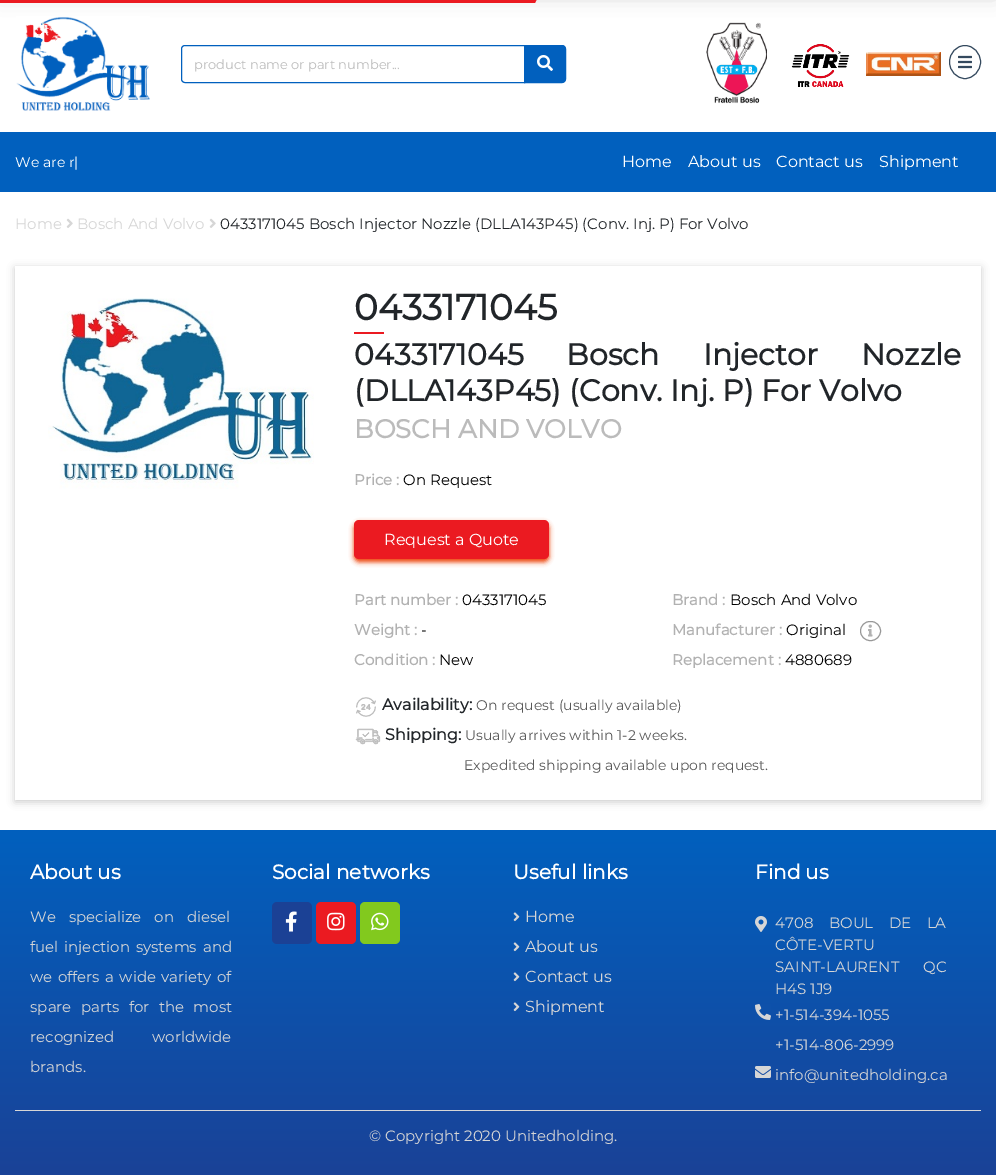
%!PS
<< /PageSize [996 1175] /PageUsesTransparency true >> setpagedevice
/rgb { dup -16 bitshift 255 div exch dup -8 bitshift 255 and 255 div exch 255 and 255 div setrgbcolor } def
/font { [ exch dup neg 0 0 3 -1 roll 0 0 ] selectfont } def
/text { moveto show } def
/alpha { dup .setfillconstantalpha .setstrokeconstantalpha } def
/roundrect { 5 dict begin { /r /h /w /y /x } { exch def } forall
  x r add y moveto x w add y 2 copy h add r arct x w add y h add x 1 index r arct
  x y h add x y r arct x y 2 copy exch w add exch r arct closepath end } def
/shadow { 12 dict begin { /a /b /q /h /w /y /x } { exch def } forall gsave /was 0 def
  9 -2 -9 { dup b mul 4 div /e exch def 1 sub .425 mul 2.718 exch exp 1 add a .99 .min exch div /now exch def
    1 1 now sub 1 was sub div sub alpha /was now def
    w h .min e 2 mul add 0 gt { x e sub y e sub w e 2 mul add h e 2 mul add
      q e add b .6 mul add w h .min 2 div e add .min 0 .max roundrect fill } if } for grestore end } def
/picture { 5 dict begin { /h /w /y /x /name } { exch def } forall
  gsave x y translate w h scale
  w h 8 [w 0 0 h 0 0] name (r) file false 3 colorimage grestore end } def
0 .pushpdf14devicefilter
0 1175 translate 1 -1 scale
4 setmiterlimit
/s1 { /Montserrat-Regular 13 font 16#BBBBBB rgb } def
/s2 { /Montserrat-Regular 14 font 16#FFFFFF rgb } def
/s3 { /Montserrat-Regular 16 font 16#FFFFFF rgb } def
/s4 { /Montserrat-Regular 15 font 16#D6D6D6 rgb } def
/s5 { /Montserrat-Regular 15 font 16#212529 rgb } def
/s6 { /Montserrat-Bold 36 font 16#212529 rgb } def
/s7 { /Montserrat-Bold 30 font 16#212529 rgb } def
/s8 { /Montserrat-Bold 26 font 16#BBBBBB rgb } def
/s9 { /Montserrat-Bold 15 font 16#B1B1B1 rgb } def
/s10 { /Montserrat-Regular 15 font 16#000000 rgb } def
/s11 { /Montserrat-Bold 16 font 16#212529 rgb } def
/s12 { /Montserrat-Regular 14 font 16#595959 rgb } def
/s13 { /Montserrat-Bold 20 font 16#FFFFFF rgb } def
/s14 { /Montserrat-Regular 16 font 16#D6D6D6 rgb } def
16#FFFFFF rgb
0 0 996 1175 rectfill
16#000000 rgb
1 -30 994 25 0 10 0.2 shadow
16#EB1A21 rgb
-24 -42 moveto 557 -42 lineto 535 3 lineto -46 3 lineto closepath fill
(pic1.raw) 16 16 134 95 picture
16#0160BE rgb
185 45.5 moveto 524.5 45.5 lineto 524.5 82.5 lineto 185 82.5 lineto 183 82.5 181.5 81 181.5 79 curveto 181.5 49 lineto 181.5 47 183 45.5 185 45.5 curveto closepath stroke
s1
(product name or part number...) 194 69 text
16#0160BE rgb
524.5 45.5 moveto 562 45.5 lineto 564 45.5 565.5 47 565.5 49 curveto 565.5 79 lineto 565.5 81 564 82.5 562 82.5 curveto 524.5 82.5 lineto closepath gsave fill grestore
stroke
(pic2.raw) 537 55 16 16 picture
(pic3.raw) 706 22 61 82 picture
(pic4.raw) 791 44 59 44 picture
(pic5.raw) 866 52 75 24 picture
16#34495E rgb
965 45.5 moveto 973.5 45.5 980.5 53 980.5 62 curveto 980.5 71 973.5 78.5 965 78.5 curveto 956.5 78.5 949.5 71 949.5 62 curveto 949.5 53 956.5 45.5 965 45.5 curveto closepath stroke
(pic6.raw) 958 55 14 14 picture
16#0160BE rgb
0 132 996 60 rectfill
s2
(We are r|) 15 167 text
s3
(Home) 622 167 text
(About us) 688 167 text
(Contact us) 776 167 text
(Shipment) 879 167 text
s4
(Home) 15 229 text
(pic7.raw) 66 218 7 10 picture
(Bosch And Volvo) 77 229 text
(pic7.raw) 209 218 7 10 picture
s5
(0433171045 Bosch Injector Nozzle \(DLLA143P45\) \(Conv. Inj. P\) For Volvo) 220 229 text
gsave
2 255 moveto 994 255 lineto 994 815 lineto 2 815 lineto closepath 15 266 moveto 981 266 lineto 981 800 lineto 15 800 lineto closepath eoclip newpath
16#000000 rgb
15 268 966 534 0 4 0.2 shadow
grestore
(pic8.raw) 48 298 266 191 picture
s6
(0433171045) 354 320 text
16#EB1A21 rgb
354 332 30 2 rectfill
/Montserrat-Bold 30 font
16#212529 rgb
354 365 moveto 35 0 32 (0433171045 Bosch Injector Nozzle) widthshow
(\(DLLA143P45\) \(Conv. Inj. P\) For Volvo) 354 401 text
s8
(BOSCH AND VOLVO) 354 438 text
s9
(Price :) 354 485 text
s10
(On Request) 403 485 text
16#ED3B00 rgb
354 523 195 39 5 2.5 1 shadow
16#EB1A21 rgb
354 520 195 39 5 roundrect fill
s3
(Request a Quote) 384 545 text
s9
(Part number :) 354 605 text
s10
(0433171045) 462 605 text
s9
(Weight :) 354 635 text
s10
(-) 421 635 text
s9
(Condition :) 354 665 text
s10
(New) 439 665 text
s9
(Brand :) 672 605 text
s10
(Bosch And Volvo) 730 605 text
s9
(Manufacturer :) 672 635 text
s10
(Original) 786 635 text
16#989898 rgb
860.5 621.5 20 19 9.5 roundrect stroke
(pic9.raw) 868 624 5 13 picture
s9
(Replacement :) 672 665 text
s10
(4880689) 785 665 text
(pic10.raw) 356 697 20 20 picture
s11
(Availability:) 382 710 text
s12
(On request \(usually available\)) 476 710 text
(pic11.raw) 355 728 26 17 picture
s11
(Shipping:) 385 740 text
s12
(Usually arrives within 1-2 weeks.) 465 740 text
(Expedited shipping available upon request.) 464 770 text
gsave 0 830 moveto 996 830 lineto 996 1175 lineto 0 1175 lineto closepath clip newpath
<< /ShadingType 2 /ColorSpace /DeviceRGB /Coords [498 830 498 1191] /Extend [true true] /Function << /FunctionType 2 /Domain [0 1] /C0 [0.004 0.376 0.745] /C1 [0.106 0.255 0.584] /N 1 >> >> shfill grestore
s13
(About us) 30 879 text
/Montserrat-Regular 15 font
16#D6D6D6 rgb
30 922 moveto 9 0 32 (We specialize on diesel) widthshow
30 952 moveto 2 0 32 (fuel injection systems and) widthshow
30 982 moveto 1.5 0 32 (we offers a wide variety of) widthshow
30 1012 moveto 5.5 0 32 (spare parts for the most) widthshow
30 1042 moveto 34 0 32 (recognized worldwide) widthshow
(brands.) 30 1072 text
s13
(Social networks) 272 879 text
16#1B4195 rgb
272 902 40 42 5 roundrect fill
(pic12.raw) 285 911 12 21 picture
16#EB1A21 rgb
316 902 40 42 5 roundrect fill
(pic13.raw) 327 912 18 19 picture
16#82C91E rgb
360 902 40 42 5 roundrect fill
(pic14.raw) 371 912 18 19 picture
s13
(Useful links) 513 879 text
(pic15.raw) 513 912 7 10 picture
s14
(Home) 525 922 text
(pic16.raw) 513 942 7 10 picture
(About us) 525 952 text
(pic17.raw) 513 972 7 10 picture
(Contact us) 525 982 text
(pic18.raw) 513 1002 7 10 picture
(Shipment) 525 1012 text
s13
(Find us) 755 879 text
(pic19.raw) 755 916 12 16 picture
/Montserrat-Regular 15 font
16#D6D6D6 rgb
775 928 moveto 11.5 0 32 (4708 BOUL DE LA) widthshow
(CÔTE-VERTU) 775 950 text
775 972 moveto 20 0 32 (SAINT-LAURENT QC) widthshow
(H4S 1J9) 775 994 text
(pic20.raw) 755 1004 16 16 picture
(+1-514-394-1055) 775 1020 text
(+1-514-806-2999) 775 1050 text
(pic21.raw) 755 1066 16 12 picture
(info@unitedholding.ca) 775 1080 text
15 1110 966 1 rectfill
(© Copyright 2020 Unitedholding.) 369 1141 text
.poppdf14devicefilter showpage
